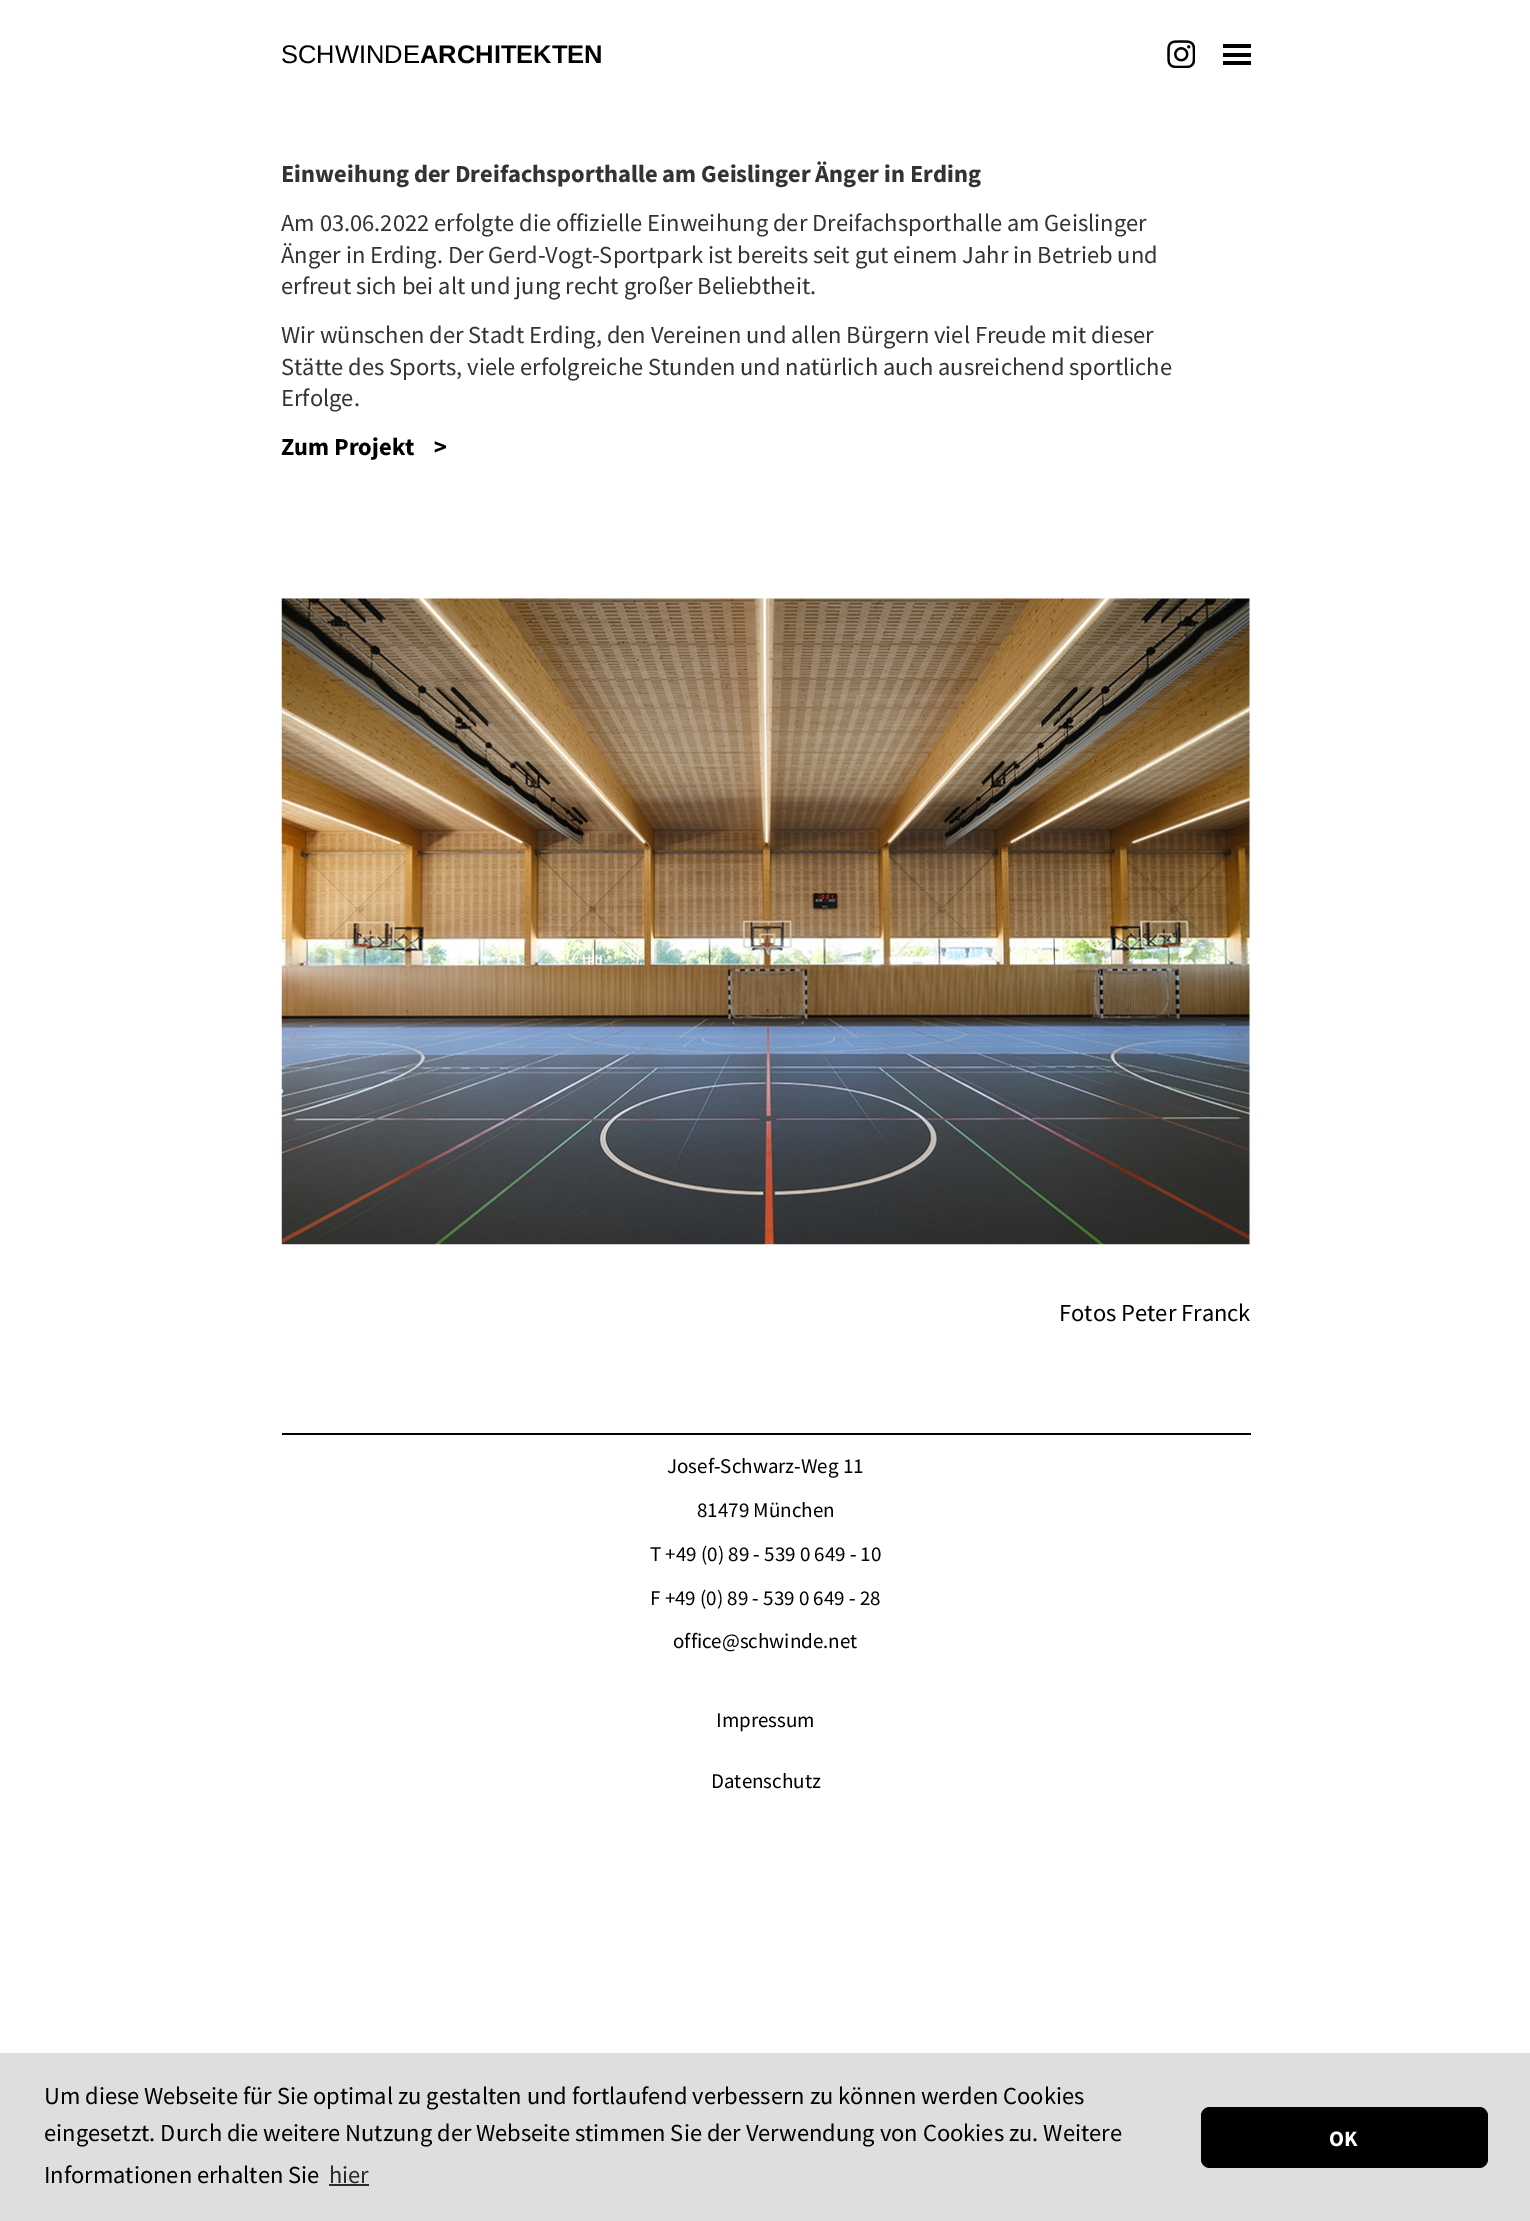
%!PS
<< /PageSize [1530 2221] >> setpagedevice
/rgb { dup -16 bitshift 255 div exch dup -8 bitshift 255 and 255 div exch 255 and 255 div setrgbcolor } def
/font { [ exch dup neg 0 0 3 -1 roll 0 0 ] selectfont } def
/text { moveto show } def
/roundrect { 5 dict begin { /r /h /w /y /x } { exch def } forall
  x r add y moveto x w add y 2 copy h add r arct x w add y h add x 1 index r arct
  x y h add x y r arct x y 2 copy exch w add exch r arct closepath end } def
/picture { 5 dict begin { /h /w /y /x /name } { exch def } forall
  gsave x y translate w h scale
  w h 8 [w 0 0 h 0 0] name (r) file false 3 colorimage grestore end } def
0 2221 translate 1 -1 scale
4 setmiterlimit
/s1 { /LiberationSans-Regular 25.5 font 16#000000 rgb } def
/s2 { /LiberationSans-Bold 25.5 font 16#000000 rgb } def
/s3 { /SourceSansPro-Bold 24.5 font 16#333333 rgb } def
/s4 { /SourceSansPro-Regular 24.5 font 16#333333 rgb } def
/s5 { /SourceSansPro-Bold 24.5 font 16#000000 rgb } def
/s6 { /SourceSansPro-Regular 24.5 font 16#000000 rgb } def
/s7 { /SourceSansPro-Regular 21 font 16#000000 rgb } def
/s8 { /SourceSansPro-Regular 24.5 font 16#2C2C2C rgb } def
/s9 { /SourceSansPro-Bold 22 font 16#FFFFFF rgb } def
16#FFFFFF rgb
0 0 1530 2221 rectfill
s1
(SCHWINDE) 281 63 text
s2
(ARCHITEKTEN) 420 63 text
(pic1.raw) 1167 40 28 28 picture
1223 44 28 4 rectfill
1223 53 28 4 rectfill
1223 61 28 4 rectfill
s3
(Einweihung der Dreifachsporthalle am Geislinger Änger in Erding) 281 182 text
s4
(Am 03.06.2022 erfolgte die offizielle Einweihung der Dreifachsporthalle am Geislinger) 281 231 text
(Änger in Erding. Der Gerd-Vogt-Sportpark ist bereits seit gut einem Jahr in Betrieb und) 281 263 text
(erfreut sich bei alt und jung recht großer Beliebtheit.) 281 294 text
(Wir wünschen der Stadt Erding, den Vereinen und allen Bürgern viel Freude mit dieser) 281 343 text
(Stätte des Sports, viele erfolgreiche Stunden und natürlich auch ausreichend sportliche) 281 375 text
(Erfolge.) 281 406 text
s5
(Zum Projekt    >) 281 455 text
(pic2.raw) 281 598 969 647 picture
s6
(Fotos Peter Franck) 1059 1321 text
282 1433 969 2 rectfill
s7
(Josef-Schwarz-Weg 11) 667 1473 text
(81479 München) 697 1517 text
(T +49 \(0\) 89 - 539 0 649 - 10) 650 1561 text
(F +49 \(0\) 89 - 539 0 649 - 28) 650 1605 text
(office@schwinde.net) 673 1648 text
(Impressum) 716 1727 text
(Datenschutz) 711 1788 text
16#DEDEDE rgb
0 2053 1530 168 rectfill
s6
(Um diese Webseite für Sie optimal zu gestalten und fortlaufend verbessern zu können werden Cookies) 44 2104 text
(eingesetzt. Durch die weitere Nutzung der Webseite stimmen Sie der Verwendung von Cookies zu. Weitere) 44 2141 text
(Informationen erhalten Sie) 44 2183 text
s8
(hier) 329 2183 text
329 2184 40 2 rectfill
16#000000 rgb
1201 2107 287 61 9 roundrect fill
s9
(OK) 1329 2146 text
showpage
